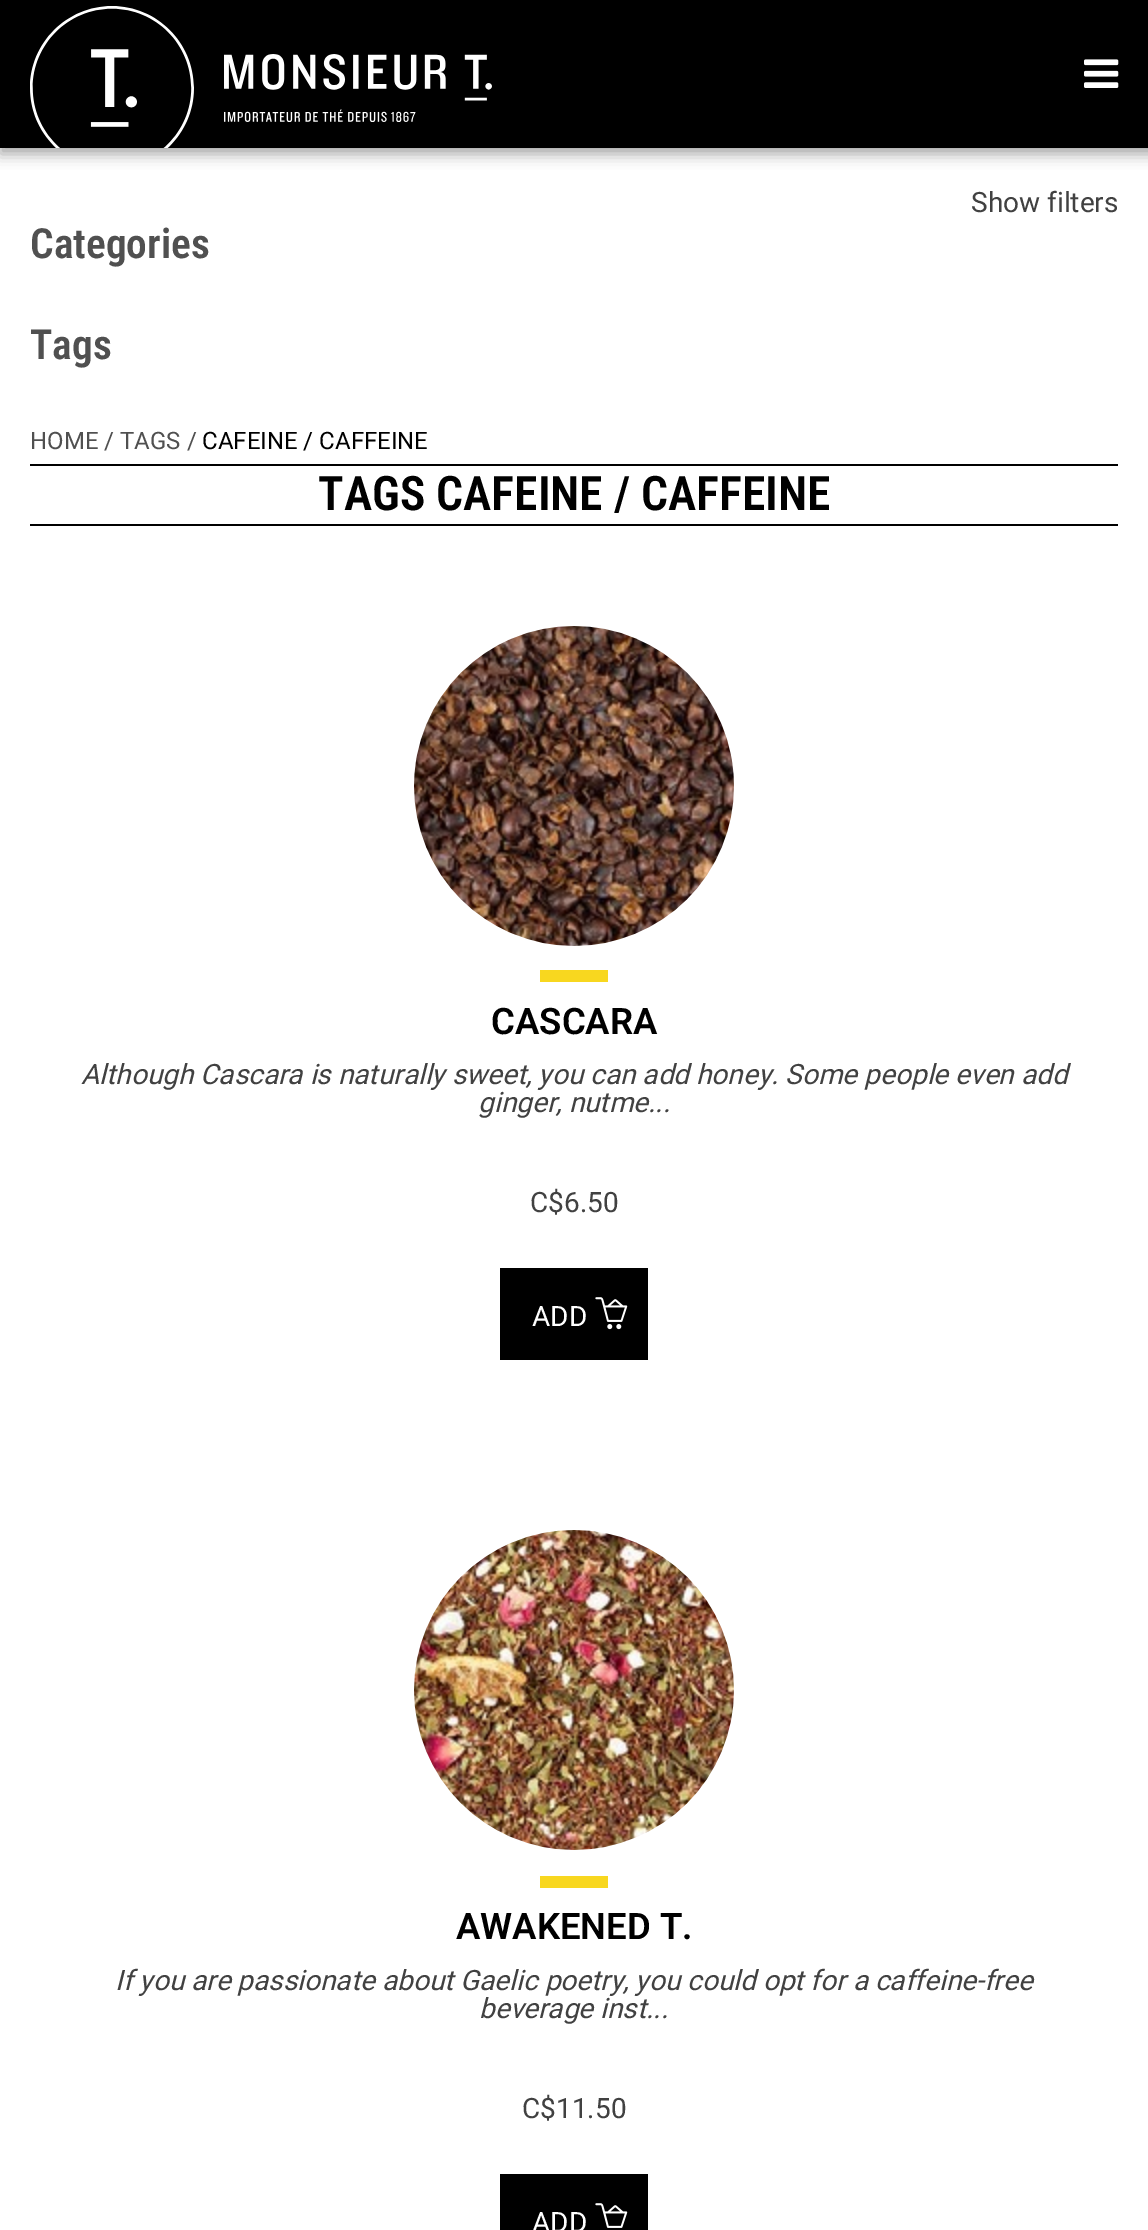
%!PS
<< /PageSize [1148 2230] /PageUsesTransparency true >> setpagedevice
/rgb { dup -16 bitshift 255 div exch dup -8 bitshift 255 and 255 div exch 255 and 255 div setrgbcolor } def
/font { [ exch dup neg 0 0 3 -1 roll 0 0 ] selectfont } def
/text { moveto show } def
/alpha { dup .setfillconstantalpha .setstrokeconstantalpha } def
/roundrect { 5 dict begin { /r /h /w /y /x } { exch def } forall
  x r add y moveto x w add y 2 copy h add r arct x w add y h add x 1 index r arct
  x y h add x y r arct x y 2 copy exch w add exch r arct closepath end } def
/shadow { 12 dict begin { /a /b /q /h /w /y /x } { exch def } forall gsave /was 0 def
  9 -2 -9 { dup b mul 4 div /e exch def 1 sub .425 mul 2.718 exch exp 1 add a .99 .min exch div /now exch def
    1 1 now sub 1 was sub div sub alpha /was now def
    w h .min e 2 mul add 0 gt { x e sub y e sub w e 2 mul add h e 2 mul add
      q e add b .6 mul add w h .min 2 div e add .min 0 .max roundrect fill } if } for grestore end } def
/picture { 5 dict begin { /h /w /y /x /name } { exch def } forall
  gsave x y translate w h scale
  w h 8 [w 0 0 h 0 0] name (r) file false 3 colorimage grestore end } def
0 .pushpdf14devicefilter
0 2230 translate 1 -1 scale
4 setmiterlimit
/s1 { /Roboto-Regular 28 font 16#414141 rgb } def
/s2 { /RobotoCondensed-SemiBold 41.5 font 16#505050 rgb } def
/s3 { /Roboto-Regular 24 font 16#505050 rgb } def
/s4 { /Roboto-Regular 24 font 16#000000 rgb } def
/s5 { /RobotoCondensed-SemiBold 47.6 font 16#000000 rgb } def
/s6 { /Roboto-SemiBold 36.5 font 16#000000 rgb } def
/s7 { /Roboto-Italic 28 font 16#414141 rgb } def
/s8 { /Roboto-Regular 28 font 16#FFFFFF rgb } def
16#FFFFFF rgb
0 0 1148 2230 rectfill
16#000000 rgb
0 -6 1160 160 0 7 0.35 shadow
0 0 1148 148 rectfill
(pic1.raw) 30 6 164 142 picture
(pic2.raw) 224 54 268 68 picture
(pic3.raw) 1084 59 35 29 picture
s1
(Show filters) 971 212 text
s2
(Categories) 30 258 text
(Tags) 30 359 text
s3
(HOME / TAGS /) 30 449 text
s4
(CAFEINE / CAFFEINE) 202 449 text
30 464 1088 2 rectfill
s5
(TAGS CAFEINE / CAFFEINE) 318 510 text
30 524 1088 2 rectfill
(pic4.raw) 414 626 320 320 picture
16#F8D71F rgb
540 970 68 12 rectfill
s6
(CASCARA) 491 1034 text
s7
(Although Cascara is naturally sweet, you can add honey. Some people even add) 81 1084 text
(ginger, nutme...) 478 1112 text
s1
(C$6.50) 530 1212 text
16#000000 rgb
500 1268 148 92 rectfill
s8
(ADD) 532 1326 text
(pic5.raw) 595 1297 33 33 picture
(pic6.raw) 414 1530 320 320 picture
16#F8D71F rgb
540 1876 68 12 rectfill
s6
(AWAKENED T.) 456 1939 text
s7
(If you are passionate about Gaelic poetry, you could opt for a caffeine-free) 115 1990 text
(beverage inst...) 479 2018 text
s1
(C$11.50) 522 2118 text
16#000000 rgb
500 2174 148 56 rectfill
s8
(ADD) 532 2232 text
(pic7.raw) 595 2203 33 25 picture
.poppdf14devicefilter showpage
